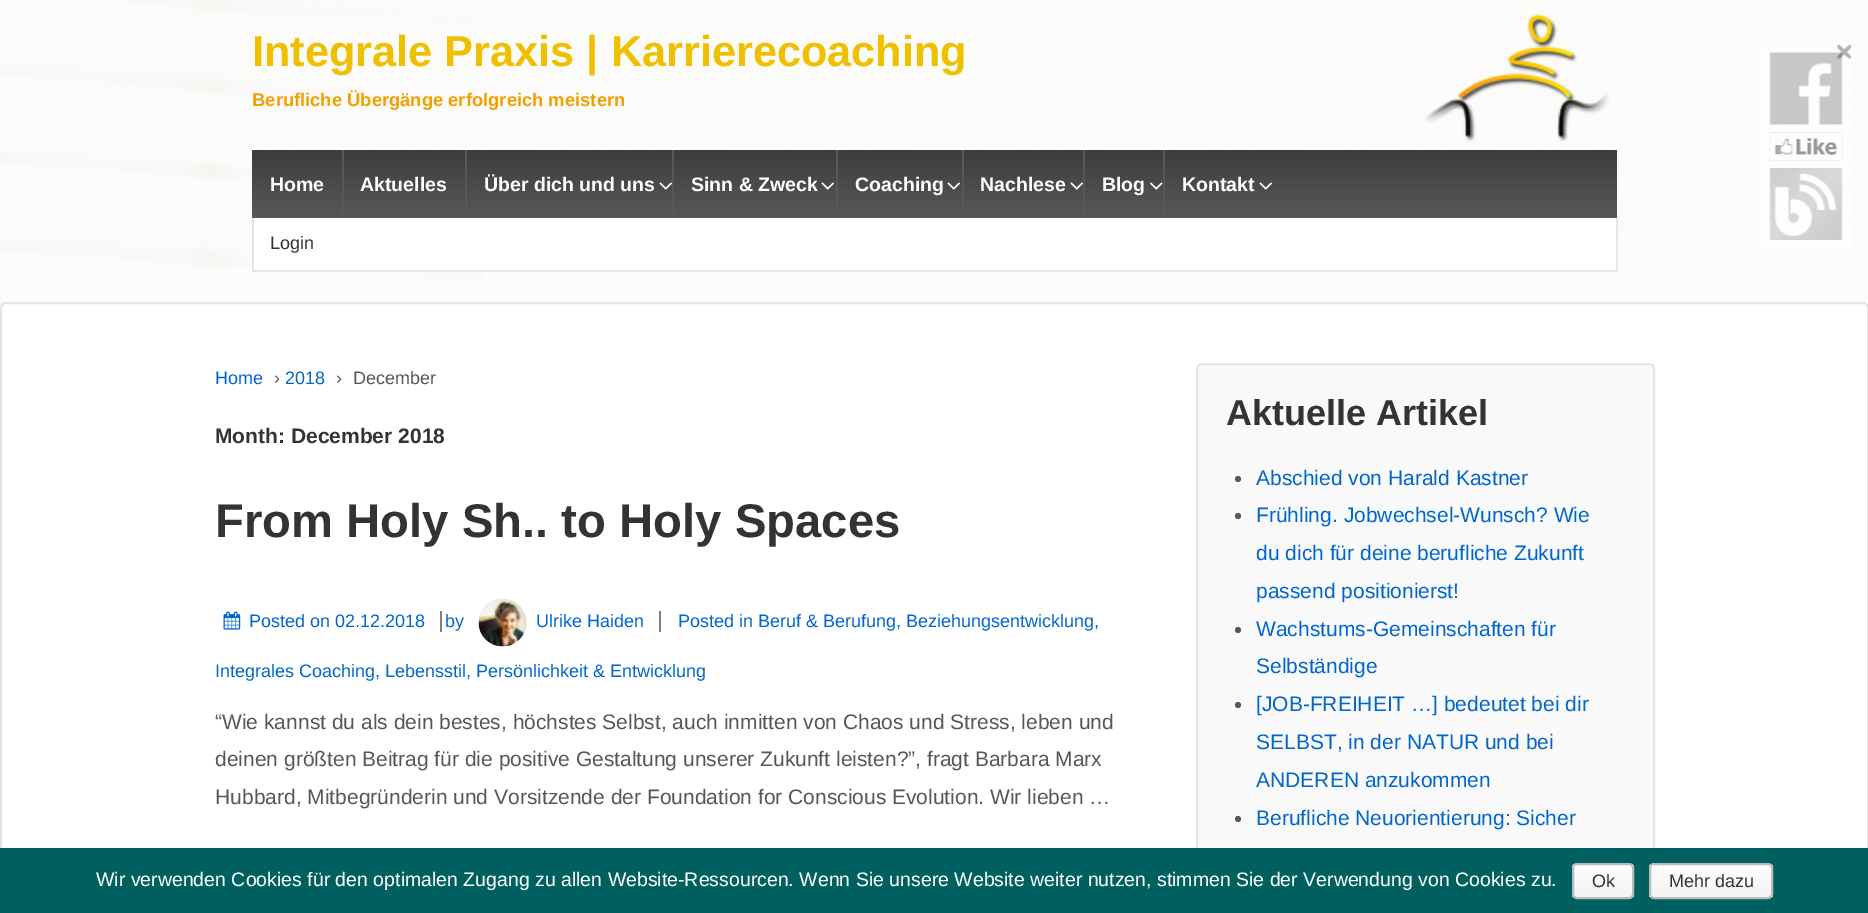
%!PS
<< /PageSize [1868 913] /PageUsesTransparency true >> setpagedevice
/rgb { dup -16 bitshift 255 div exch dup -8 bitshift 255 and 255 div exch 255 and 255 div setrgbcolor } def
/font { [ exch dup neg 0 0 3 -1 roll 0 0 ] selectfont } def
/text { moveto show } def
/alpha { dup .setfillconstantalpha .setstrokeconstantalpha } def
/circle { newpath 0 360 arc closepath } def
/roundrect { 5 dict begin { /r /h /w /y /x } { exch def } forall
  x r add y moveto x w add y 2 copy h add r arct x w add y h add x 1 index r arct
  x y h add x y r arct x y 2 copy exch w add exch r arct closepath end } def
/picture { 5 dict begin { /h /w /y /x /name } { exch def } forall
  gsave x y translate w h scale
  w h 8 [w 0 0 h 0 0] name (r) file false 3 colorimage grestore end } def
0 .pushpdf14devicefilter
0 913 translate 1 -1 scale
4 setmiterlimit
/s1 { /LiberationSans-Bold 43.3 font 16#F0C000 rgb } def
/s2 { /LiberationSans-Bold 18.4 font 16#F0A000 rgb } def
/s3 { /LiberationSans-Bold 19.5 font 16#FFFFFF rgb } def
/s4 { /LiberationSans-Regular 18 font 16#333333 rgb } def
/s5 { /LiberationSans-Regular 18 font 16#0066CC rgb } def
/s6 { /LiberationSans-Regular 18 font 16#575757 rgb } def
/s7 { /LiberationSans-Bold 21 font 16#333333 rgb } def
/s8 { /LiberationSans-Bold 47.25 font 16#333333 rgb } def
/s9 { /LiberationSans-Regular 21 font 16#575757 rgb } def
/s10 { /LiberationSans-Bold 36 font 16#333333 rgb } def
/s11 { /LiberationSans-Regular 21 font 16#0066CC rgb } def
/s12 { /LiberationSans-Regular 19.5 font 16#FFFFFF rgb } def
16#FFFFFF rgb
0 0 1868 913 rectfill
(pic1.raw) 0 0 1868 308 picture
s1
(Integrale Praxis | Karrierecoaching) 252 66 text
s2
(Berufliche Übergänge erfolgreich meistern) 252 106 text
(pic2.raw) 1425 13 184 129 picture
gsave 252 150 moveto 1617 150 lineto 1617 218 lineto 252 218 lineto closepath clip newpath
<< /ShadingType 2 /ColorSpace /DeviceRGB /Coords [935 218 935 150] /Extend [true true] /Function << /FunctionType 2 /Domain [0 1] /C0 [0.345 0.345 0.345] /C1 [0.239 0.239 0.239] /N 1 >> >> shfill grestore
s3
(Home) 270 191 text
16#585858 rgb
342 150 2 68 rectfill
s3
(Aktuelles) 360 191 text
16#585858 rgb
465 150 2 68 rectfill
s3
(Über dich und uns) 484 191 text
(pic3.raw) 659 182 13 8 picture
16#585858 rgb
672 150 2 68 rectfill
s3
(Sinn & Zweck) 691 191 text
(pic3.raw) 821 182 13 8 picture
16#585858 rgb
836 150 2 68 rectfill
s3
(Coaching) 855 191 text
(pic3.raw) 947 182 13 8 picture
16#585858 rgb
962 150 2 68 rectfill
s3
(Nachlese) 980 191 text
(pic3.raw) 1070 182 13 8 picture
16#585858 rgb
1083 150 2 68 rectfill
s3
(Blog) 1102 191 text
(pic4.raw) 1150 182 13 8 picture
16#585858 rgb
1163 150 2 68 rectfill
s3
(Kontakt) 1182 191 text
(pic3.raw) 1259 182 13 8 picture
254 218 1362 52 rectfill
16#E5E5E5 rgb
1616 218 2 54 rectfill
252 270 1365 2 rectfill
252 218 2 54 rectfill
s4
(Login) 270 249 text
0.5 alpha
16#FFFFFF rgb
1761 45 90 203 rectfill
1 alpha
(pic5.raw) 1769 52 74 73 picture
(pic6.raw) 1769 132 74 29 picture
(pic7.raw) 1769 168 74 72 picture
(pic8.raw) 1837 45 15 14 picture
1 303 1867 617 5 roundrect gsave fill grestore
16#E5E5E5 rgb
2 setlinewidth
stroke
s5
(Home) 215 384 text
s6
(›) 274 384 text
s5
(2018) 285 384 text
s6
(›) 336 384 text
(December) 353 384 text
s7
(Month: December 2018) 215 443 text
s8
(From Holy Sh.. to Holy Spaces) 215 537 text
(pic9.raw) 223 611 18 19 picture
s5
(Posted on 02.12.2018) 249 627 text
16#7E7E7E rgb
440 611 2 21 rectfill
s5
(by) 445 627 text
(pic10.raw) 478 598 49 49 picture
(Ulrike Haiden) 536 627 text
16#7E7E7E rgb
659 611 2 21 rectfill
s5
(Posted in Beruf & Berufung, Beziehungsentwicklung,) 678 627 text
(Integrales Coaching, Lebensstil, Persönlichkeit & Entwicklung) 215 677 text
s9
(“Wie kannst du als dein bestes, höchstes Selbst, auch inmitten von Chaos und Stress, leben und) 215 729 text
(deinen größten Beitrag für die positive Gestaltung unserer Zukunft leisten?”, fragt Barbara Marx) 215 766 text
(Hubbard, Mitbegründerin und Vorsitzende der Foundation for Conscious Evolution. Wir lieben …) 215 804 text
16#F9F9F9 rgb
1197 364 457 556 5 roundrect gsave fill grestore
16#E5E5E5 rgb
stroke
s10
(Aktuelle Artikel) 1226 425 text
16#575757 rgb
1238 479 3 circle fill
s11
(Abschied von Harald Kastner) 1256 485 text
16#575757 rgb
1238 516 3 circle fill
s11
(Frühling. Jobwechsel-Wunsch? Wie) 1256 522 text
(du dich für deine berufliche Zukunft) 1256 560 text
(passend positionierst!) 1256 598 text
16#575757 rgb
1238 630 3 circle fill
s11
(Wachstums-Gemeinschaften für) 1256 636 text
(Selbständige) 1256 673 text
16#575757 rgb
1238 705 3 circle fill
s11
([JOB-FREIHEIT …] bedeutet bei dir) 1256 711 text
(SELBST, in der NATUR und bei) 1256 749 text
(ANDEREN anzukommen) 1256 787 text
16#575757 rgb
1238 819 3 circle fill
s11
(Berufliche Neuorientierung: Sicher) 1256 825 text
16#006060 rgb
0 848 1868 65 rectfill
s12
(Wir verwenden Cookies für den optimalen Zugang zu allen Website-Ressourcen. Wenn Sie unsere Website weiter nutzen, stimmen Sie der Verwendung von Cookies zu.) 96 886 text
gsave
1572 863 62 36 5 roundrect clip newpath
gsave 1572 864 moveto 1634 864 lineto 1634 897 lineto 1572 897 lineto closepath clip newpath
<< /ShadingType 2 /ColorSpace /DeviceRGB /Coords [1603 864 1603 897] /Extend [true true] /Function << /FunctionType 2 /Domain [0 1] /C0 [0.996 0.996 0.996] /C1 [0.957 0.957 0.957] /N 1 >> >> shfill grestore
grestore
16#BBBBBB rgb
1573 864 60 34 4 roundrect stroke
s4
(Ok) 1592 887 text
gsave
1649 863 124 36 5 roundrect clip newpath
gsave 1649 864 moveto 1773 864 lineto 1773 897 lineto 1649 897 lineto closepath clip newpath
<< /ShadingType 2 /ColorSpace /DeviceRGB /Coords [1711 864 1711 897] /Extend [true true] /Function << /FunctionType 2 /Domain [0 1] /C0 [0.996 0.996 0.996] /C1 [0.957 0.957 0.957] /N 1 >> >> shfill grestore
grestore
16#BBBBBB rgb
1650 864 122 34 4 roundrect stroke
s4
(Mehr dazu) 1669 887 text
.poppdf14devicefilter showpage
